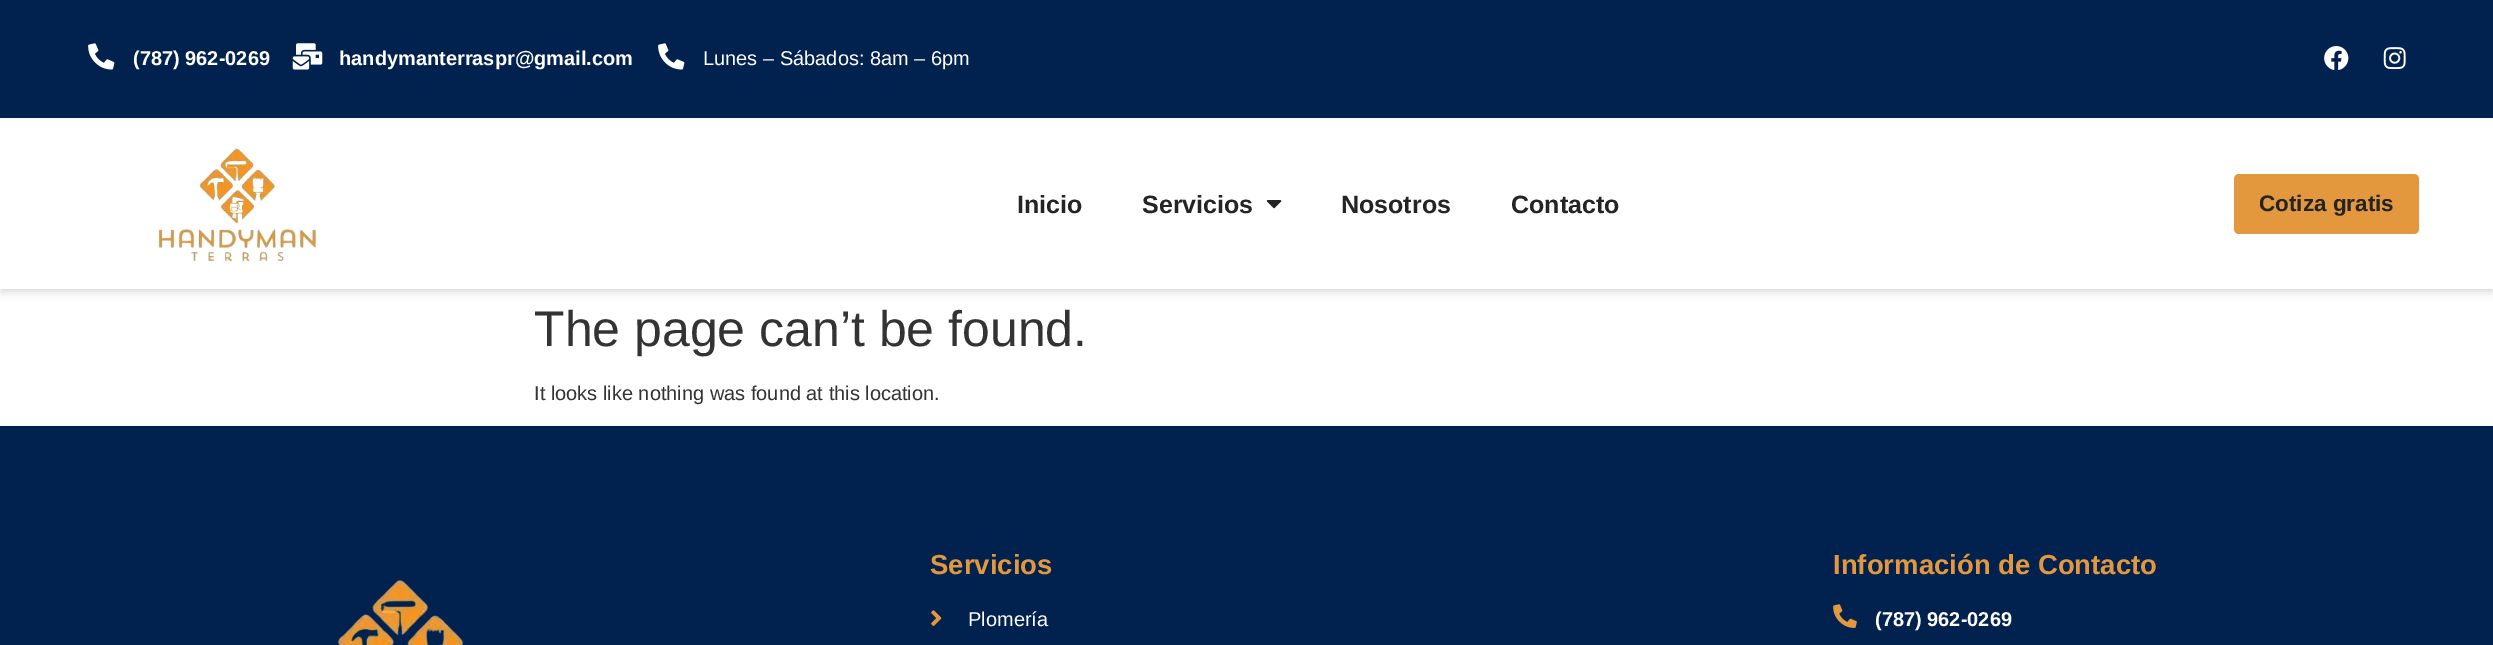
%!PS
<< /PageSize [2493 645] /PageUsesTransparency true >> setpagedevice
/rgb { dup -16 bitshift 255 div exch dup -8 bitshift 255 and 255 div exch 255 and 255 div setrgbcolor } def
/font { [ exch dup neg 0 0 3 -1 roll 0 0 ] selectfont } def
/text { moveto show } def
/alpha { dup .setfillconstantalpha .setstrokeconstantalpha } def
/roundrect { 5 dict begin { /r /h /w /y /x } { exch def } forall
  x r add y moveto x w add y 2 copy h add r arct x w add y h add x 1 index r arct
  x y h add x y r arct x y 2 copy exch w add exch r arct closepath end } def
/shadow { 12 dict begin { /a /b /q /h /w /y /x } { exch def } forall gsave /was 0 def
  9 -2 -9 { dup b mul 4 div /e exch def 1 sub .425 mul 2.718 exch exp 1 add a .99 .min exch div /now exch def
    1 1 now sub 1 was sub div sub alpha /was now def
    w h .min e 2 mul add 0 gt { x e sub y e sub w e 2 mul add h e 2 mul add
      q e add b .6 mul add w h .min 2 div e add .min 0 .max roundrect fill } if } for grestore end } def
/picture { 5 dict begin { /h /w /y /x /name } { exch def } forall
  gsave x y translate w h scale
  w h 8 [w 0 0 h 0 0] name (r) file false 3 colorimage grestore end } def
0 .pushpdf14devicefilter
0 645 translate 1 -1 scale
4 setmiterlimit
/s1 { /LiberationSans-Bold 20 font 16#FFFFFF rgb } def
/s2 { /LiberationSans-Regular 20 font 16#FFFFFF rgb } def
/s3 { /LiberationSans-Bold 25 font 16#242424 rgb } def
/s4 { /LiberationSans-Bold 22.5 font 16#242424 rgb } def
/s5 { /LiberationSans-Regular 50 font 16#333333 rgb } def
/s6 { /LiberationSans-Regular 20 font 16#333333 rgb } def
/s7 { /LiberationSans-Bold 27.5 font 16#E4983E rgb } def
16#FFFFFF rgb
0 0 2493 645 rectfill
16#01214E rgb
0 0 2493 118 rectfill
(pic1.raw) 88 43 27 27 picture
s1
(\(787\) 962-0269) 133 65 text
(pic2.raw) 292 43 31 27 picture
(handymanterraspr@gmail.com) 339 65 text
(pic1.raw) 658 43 27 27 picture
s2
(Lunes – Sábados: 8am – 6pm) 703 65 text
(pic3.raw) 2324 46 25 24 picture
(pic4.raw) 2383 47 23 23 picture
16#000000 rgb
1 123 2492 167 0 2.5 0.06 shadow
1 125 2492 168 0 4 0.1 shadow
16#FFFFFF rgb
0 119 2493 170 rectfill
(pic5.raw) 158 148 158 114 picture
s3
(Inicio) 1017 213 text
(Servicios) 1142 213 text
(pic6.raw) 1266 200 16 9 picture
(Nosotros) 1341 213 text
(Contacto) 1511 213 text
16#E4983E rgb
2234 174 185 60 5 roundrect fill
s4
(Cotiza gratis) 2259 211 text
s5
(The page can’t be found.) 534 346 text
s6
(It looks like nothing was found at this location.) 534 400 text
16#01214E rgb
0 426 2493 219 rectfill
(pic7.raw) 338 580 126 65 picture
s7
(Servicios) 930 574 text
(pic8.raw) 931 610 11 16 picture
s2
(Plomería) 968 626 text
s7
(Información de Contacto) 1833 574 text
(pic9.raw) 1833 604 24 24 picture
s1
(\(787\) 962-0269) 1875 626 text
.poppdf14devicefilter showpage
